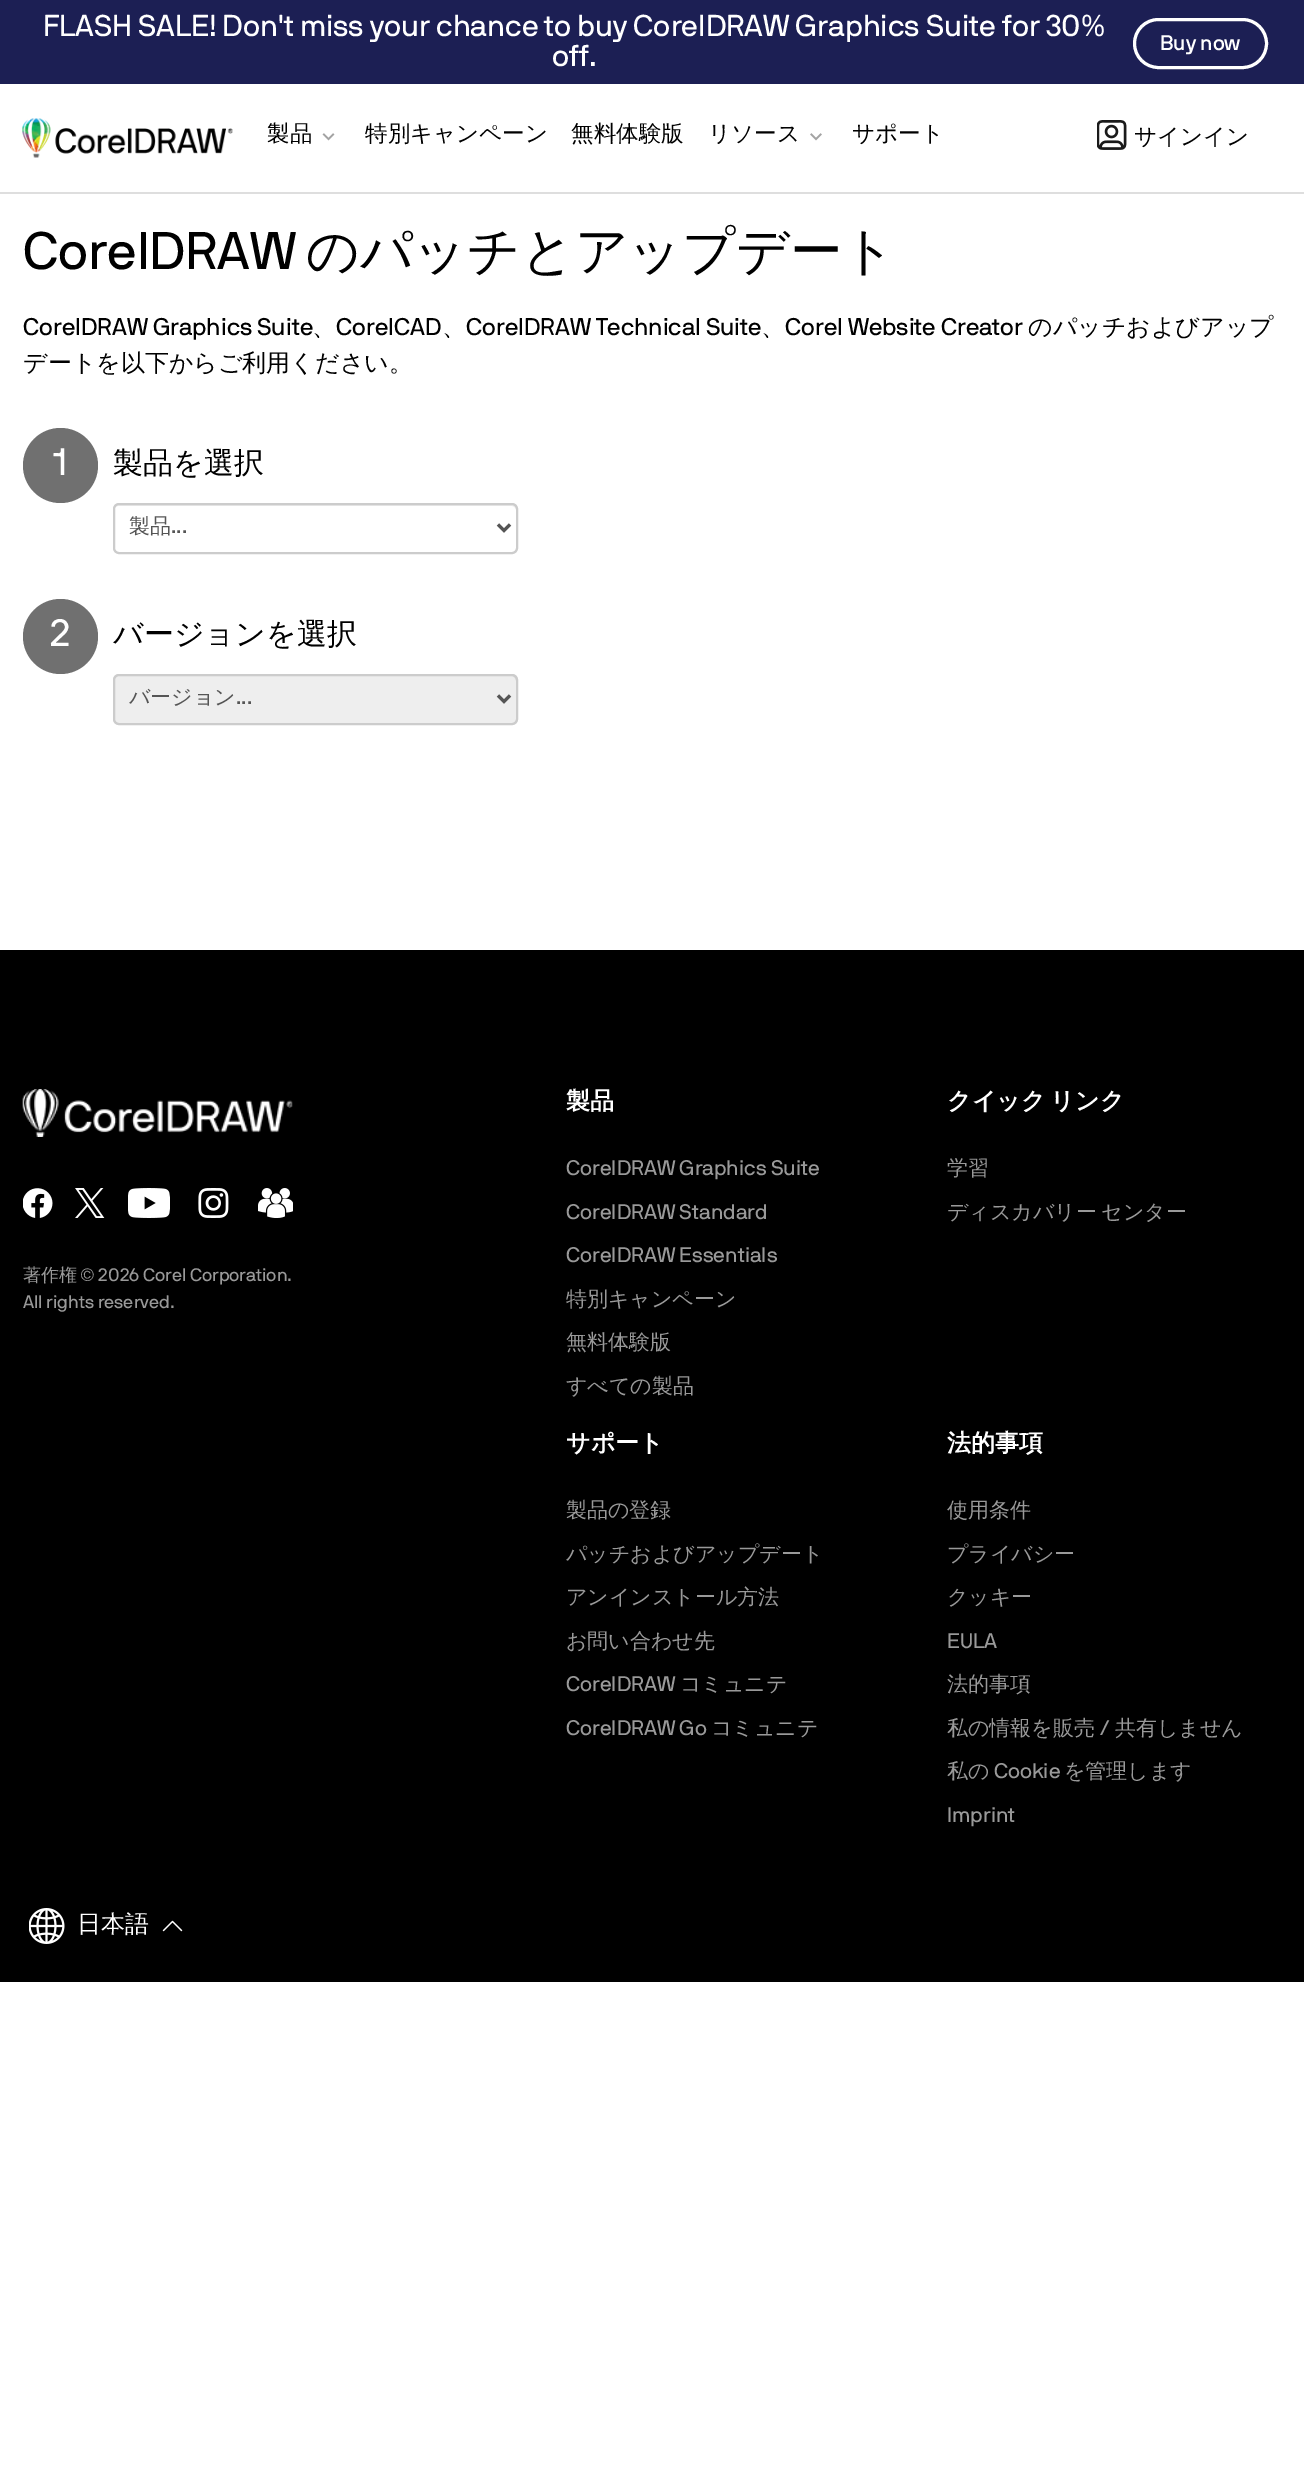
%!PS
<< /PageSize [1304 2471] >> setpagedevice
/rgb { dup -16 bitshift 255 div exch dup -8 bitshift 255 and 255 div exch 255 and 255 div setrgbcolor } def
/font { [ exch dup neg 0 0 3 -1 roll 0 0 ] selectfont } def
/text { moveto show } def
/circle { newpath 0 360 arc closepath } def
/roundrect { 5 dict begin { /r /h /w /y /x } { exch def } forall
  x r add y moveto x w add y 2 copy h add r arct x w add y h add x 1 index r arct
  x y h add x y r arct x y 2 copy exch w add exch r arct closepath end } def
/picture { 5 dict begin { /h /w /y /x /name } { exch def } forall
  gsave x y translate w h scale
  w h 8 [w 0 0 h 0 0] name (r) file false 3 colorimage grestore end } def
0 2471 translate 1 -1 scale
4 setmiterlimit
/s1 { /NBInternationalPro-Regular 30 font 16#FFFFFF rgb } def
/s2 { /NBInternationalPro-Medium 21 font 16#FFFFFF rgb } def
/s3 { /WenQuanYiZenHei-Medium 22.5 font 16#000000 rgb } def
/s4 { /NBInternationalPro-Regular 52.5 font 16#000000 rgb } def
/s5 { /WenQuanYiZenHei-Medium 52.5 font 16#000000 rgb } def
/s6 { /NBInternationalPro-Regular 24 font 16#000000 rgb } def
/s7 { /WenQuanYiZenHei-Medium 24 font 16#000000 rgb } def
/s8 { /NBInternationalPro-Regular 38 font 16#FFFFFF rgb } def
/s9 { /WenQuanYiZenHei-Medium 30 font 16#000000 rgb } def
/s10 { /WenQuanYiZenHei-Medium 21 font 16#555555 rgb } def
/s11 { /NBInternationalPro-Regular 21 font 16#555555 rgb } def
/s12 { /WenQuanYiZenHei-Medium 18 font 16#999999 rgb } def
/s13 { /NBInternationalPro-Regular 18 font 16#999999 rgb } def
/s14 { /WenQuanYiZenHei-Bold 24 font 16#FFFFFF rgb } def
/s15 { /NBInternationalPro-Regular 21 font 16#999999 rgb } def
/s16 { /WenQuanYiZenHei-Medium 21 font 16#999999 rgb } def
/s17 { /WenQuanYiZenHei-Medium 24 font 16#FFFFFF rgb } def
16#FFFFFF rgb
0 0 1304 2471 rectfill
16#1C1F54 rgb
0 0 1304 84 rectfill
s1
(FLASH SALE! Don't miss your chance to buy CorelDRAW Graphics Suite for 30%) 43 36 text
(off.) 552 66 text
3 setlinewidth
1134.5 19.5 132 48 24 roundrect stroke
s2
(Buy now) 1160 50 text
16#DEDEDE rgb
0 192 1304 2 rectfill
(pic1.raw) 22 118 211 40 picture
s3
(製品) 267 141 text
(pic2.raw) 322 133 13 8 picture
(特別キャンペーン) 365 141 text
(無料体験版) 571 141 text
(リソース) 708 141 text
(pic3.raw) 810 133 12 8 picture
(サポート) 852 141 text
(pic4.raw) 1097 120 30 30 picture
(サインイン) 1134 144 text
s4
(CorelDRAW) 23 269 text
s5
(のパッチとアップデート) 306 269 text
s6
(CorelDRAW Graphics Suite) 23 335 text
s7
(、) 312 335 text
s6
(CorelCAD) 336 335 text
s7
(、) 442 335 text
s6
(CorelDRAW Technical Suite) 466 335 text
s7
(、) 761 335 text
s6
(Corel Website Creator) 785 335 text
s7
(のパッチおよびアップ) 1028 335 text
(デートを以下からご利用ください。) 23 371 text
16#707070 rgb
60.5 465.5 37.5 circle fill
s8
(1) 53 475 text
s9
(製品を選択) 113 473 text
16#ECECEC rgb
118 506 moveto 512 506 lineto 514 506 516 508 516 510 curveto 516 509 lineto 516 506 514 504 511 504 curveto 119 504 lineto 116 504 114 506 114 509 curveto 114 510 lineto 114 508 116 506 118 506 curveto closepath fill
16#CCCCCC rgb
2 setlinewidth
114 504 403 49 5 roundrect stroke
16#555555 rgb
3 setlinewidth
498 524.5 moveto 504 530.5 lineto 510 524.5 lineto stroke
gsave
129 516 354 24 rectclip
s10
(製品) 129 533 text
grestore
s11
(...) 171 533 text
16#707070 rgb
60.5 636.5 37.5 circle fill
s8
(2) 50 646 text
s9
(バージョンを選択) 113 644 text
16#EEEEEE rgb
113 674 405 51 6 roundrect fill
16#DCDCDC rgb
118 676 moveto 512 676 lineto 514 676 516 679 516 681 curveto 516 680 lineto 516 677 514 675 511 675 curveto 119 675 lineto 116 675 114 677 114 680 curveto 114 681 lineto 114 679 116 676 118 676 curveto closepath fill
16#CCCCCC rgb
2 setlinewidth
114 675 403 49 5 roundrect stroke
16#555555 rgb
3 setlinewidth
498 695.5 moveto 504 701.5 lineto 510 695.5 lineto stroke
s10
(バージョン) 129 704 text
s11
(...) 236 704 text
16#000000 rgb
0 950 1304 1032 rectfill
(pic5.raw) 22 1089 271 48 picture
(pic6.raw) 23 1188 30 30 picture
(pic7.raw) 75 1188 30 30 picture
(pic8.raw) 128 1188 42 30 picture
(pic9.raw) 198 1188 31 30 picture
(pic10.raw) 258 1188 35 30 picture
s12
(著作権) 23 1281 text
s13
(© 2026 Corel Corporation.) 80 1281 text
(All rights reserved.) 23 1308 text
s14
(製品) 566 1109 text
s15
(CorelDRAW Graphics Suite) 566 1175 text
(CorelDRAW Standard) 566 1219 text
(CorelDRAW Essentials) 566 1262 text
s16
(特別キャンペーン) 566 1306 text
(無料体験版) 566 1349 text
(すべての製品) 566 1393 text
/WenQuanYiZenHei-Bold 24 font
16#FFFFFF rgb
947 1109 moveto -2 0 32 (クイック リンク) widthshow
s16
(学習) 947 1175 text
947 1219 moveto -2 0 32 (ディスカバリー センター) widthshow
s14
(サポート) 566 1451 text
s16
(製品の登録) 566 1517 text
(パッチおよびアップデート) 566 1561 text
(アンインストール方法) 566 1604 text
(お問い合わせ先) 566 1648 text
s15
(CorelDRAW) 566 1691 text
s16
(コミュニテ) 680 1691 text
s15
(CorelDRAW Go) 566 1735 text
s16
(コミュニテ) 711 1735 text
s14
(法的事項) 947 1451 text
s16
(使用条件) 947 1517 text
(プライバシー) 947 1561 text
(クッキー) 947 1604 text
s15
(EULA) 947 1648 text
s16
(法的事項) 947 1691 text
(私の情報を販売) 947 1735 text
s15
(/) 1099 1735 text
s16
(共有しません) 1115 1735 text
(私の) 947 1778 text
s15
(Cookie) 994 1778 text
s16
(を管理します) 1064 1778 text
s15
(Imprint) 947 1822 text
(pic11.raw) 29 1908 36 36 picture
s17
(日本語) 77 1932 text
(pic12.raw) 162 1920 21 12 picture
showpage
